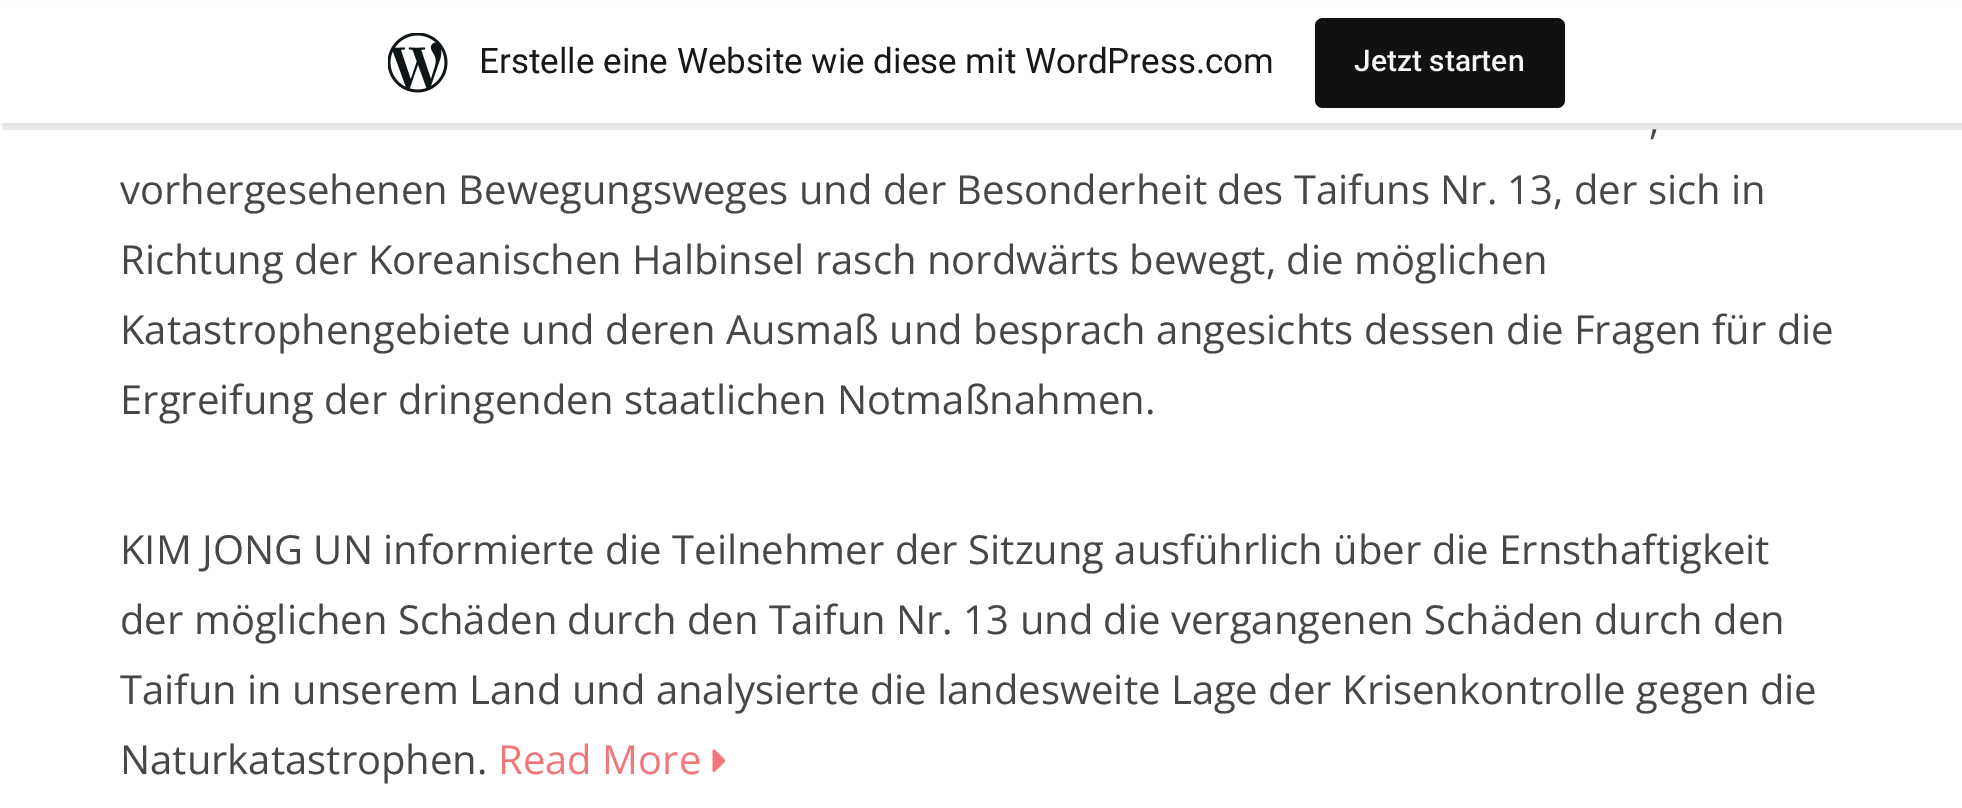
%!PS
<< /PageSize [1962 808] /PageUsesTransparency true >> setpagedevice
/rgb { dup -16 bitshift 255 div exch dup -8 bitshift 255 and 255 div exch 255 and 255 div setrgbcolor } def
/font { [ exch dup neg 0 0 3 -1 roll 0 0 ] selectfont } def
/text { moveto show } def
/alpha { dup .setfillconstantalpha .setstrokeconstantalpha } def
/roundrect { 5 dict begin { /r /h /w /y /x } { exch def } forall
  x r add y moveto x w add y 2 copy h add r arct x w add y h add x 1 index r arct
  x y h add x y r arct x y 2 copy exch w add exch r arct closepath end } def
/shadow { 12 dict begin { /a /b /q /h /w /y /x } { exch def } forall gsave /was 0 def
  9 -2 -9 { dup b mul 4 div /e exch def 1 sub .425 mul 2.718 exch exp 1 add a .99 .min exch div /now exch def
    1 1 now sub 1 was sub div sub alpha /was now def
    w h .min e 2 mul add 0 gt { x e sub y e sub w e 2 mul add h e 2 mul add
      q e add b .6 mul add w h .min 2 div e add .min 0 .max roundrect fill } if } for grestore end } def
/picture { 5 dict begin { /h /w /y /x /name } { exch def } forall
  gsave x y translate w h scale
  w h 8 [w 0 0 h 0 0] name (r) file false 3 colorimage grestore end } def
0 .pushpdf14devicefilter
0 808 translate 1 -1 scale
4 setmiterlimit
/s1 { /Roboto-Regular 35 font 16#171717 rgb } def
/s2 { /Roboto-Medium 30 font 16#F6F7F7 rgb } def
/s3 { /OpenSans-Regular 40 font 16#474747 rgb } def
/s4 { /OpenSans-Regular 40 font 16#F2777A rgb } def
16#FFFFFF rgb
0 0 1962 808 rectfill
16#000000 rgb
0 3 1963 122 0 2.5 0.05 shadow
0.08 alpha
3 122 moveto 3 130 lineto 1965 130 lineto 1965 8 lineto 1962 8 lineto 1962 122 lineto closepath fill
1 alpha
16#FFFFFF rgb
0 1 1962 122 rectfill
(pic1.raw) 388 33 60 60 picture
s1
(Erstelle eine Website wie diese mit WordPress.com) 479 73 text
16#111111 rgb
1315 18 250 90 8 roundrect fill
s2
(Jetzt starten) 1354 71 text
s3
(,) 1649 134 text
(vorhergesehenen Bewegungsweges und der Besonderheit des Taifuns Nr. 13, der sich in) 120 204 text
(Richtung der Koreanischen Halbinsel rasch nordwärts bewegt, die möglichen) 120 274 text
(Katastrophengebiete und deren Ausmaß und besprach angesichts dessen die Fragen für die) 120 344 text
(Ergreifung der dringenden staatlichen Notmaßnahmen.) 120 414 text
(KIM JONG UN informierte die Teilnehmer der Sitzung ausführlich über die Ernsthaftigkeit) 120 564 text
(der möglichen Schäden durch den Taifun Nr. 13 und die vergangenen Schäden durch den) 120 634 text
(Taifun in unserem Land und analysierte die landesweite Lage der Krisenkontrolle gegen die) 120 704 text
(Naturkatastrophen.) 120 774 text
s4
(Read More) 498 774 text
(pic2.raw) 712 749 14 24 picture
.poppdf14devicefilter showpage
